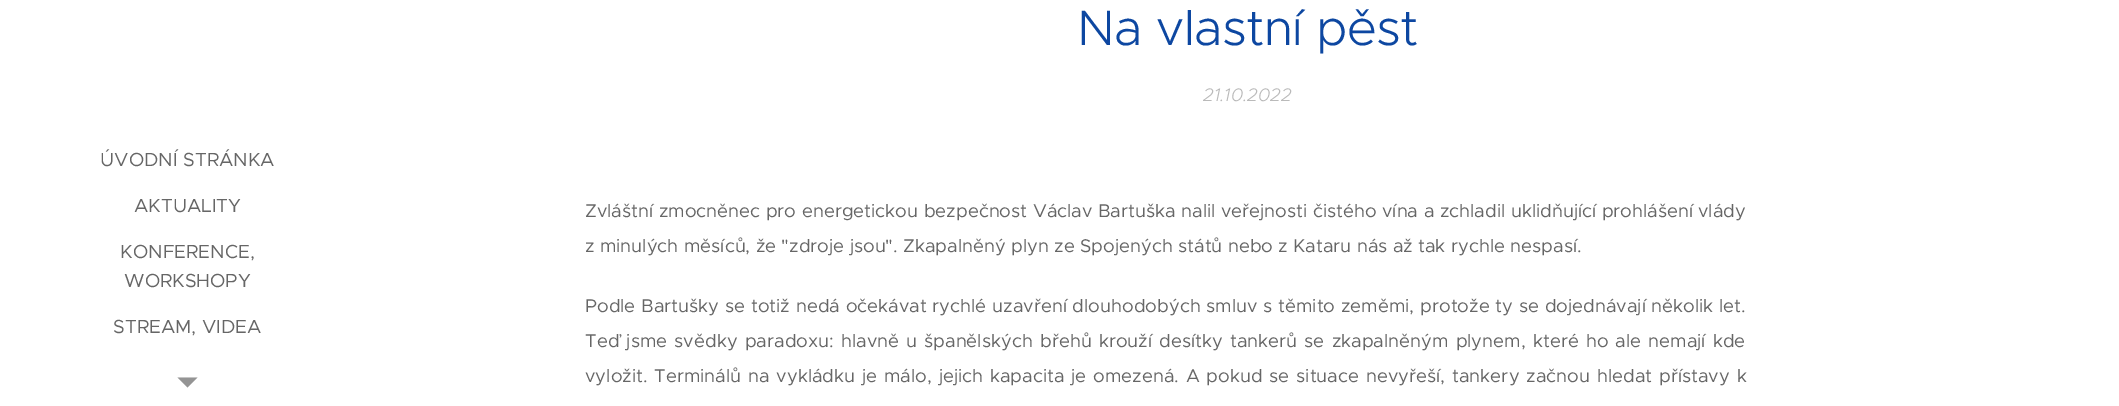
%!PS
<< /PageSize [2119 406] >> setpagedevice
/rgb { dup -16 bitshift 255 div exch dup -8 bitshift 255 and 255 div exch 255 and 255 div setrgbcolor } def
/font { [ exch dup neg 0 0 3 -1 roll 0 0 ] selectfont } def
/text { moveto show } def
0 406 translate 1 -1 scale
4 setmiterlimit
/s1 { /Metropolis-Regular 19 font 16#666666 rgb } def
/s2 { /Metropolis-LightItalic 18.25 font 16#BABABA rgb } def
/s3 { /Metropolis-Regular 18.45 font 16#666666 rgb } def
16#FFFFFF rgb
0 0 2119 406 rectfill
s1
(ÚVODNÍ STRÁNKA) 100 166 text
(AKTUALITY) 134 212 text
(KONFERENCE,) 120 258 text
(WORKSHOPY) 124 287 text
(STREAM, VIDEA) 113 333 text
16#949494 rgb
177.5 377.5 moveto 197.5 377.5 lineto 187.5 387.5 lineto closepath fill
/Metropolis-Light 50 font
16#0D47A1 rgb
1077 45 moveto -0.5 0 (Na vlastní pěst) ashow
s2
(21.10.2022) 1203 101 text
/Metropolis-Regular 18.45 font
16#666666 rgb
585 217 moveto 0.25 0 32 (Zvláštní zmocněnec pro energetickou bezpečnost Václav Bartuška nalil veřejnosti čistého vína a zchladil uklidňující prohlášení) widthshow
(vlády) 1698 217 text
(z minulých měsíců, že "zdroje jsou". Zkapalněný plyn ze Spojených států nebo z Kataru nás až tak rychle nespasí.) 585 252 text
585 312 moveto 0.4 0 32 (Podle Bartušky se totiž nedá očekávat rychlé uzavření dlouhodobých smluv s těmito zeměmi, protože ty se dojednávají několik let.) widthshow
585 347 moveto 1.75 0 32 (Teď jsme svědky paradoxu: hlavně u španělských břehů krouží desítky tankerů se zkapalněným plynem, které ho ale nemají kde) widthshow
585 382 moveto 1.5 0 32 (vyložit. Terminálů na vykládku je málo, jejich kapacita je omezená. A pokud se situace nevyřeší, tankery začnou hledat přístavy k) widthshow
showpage
